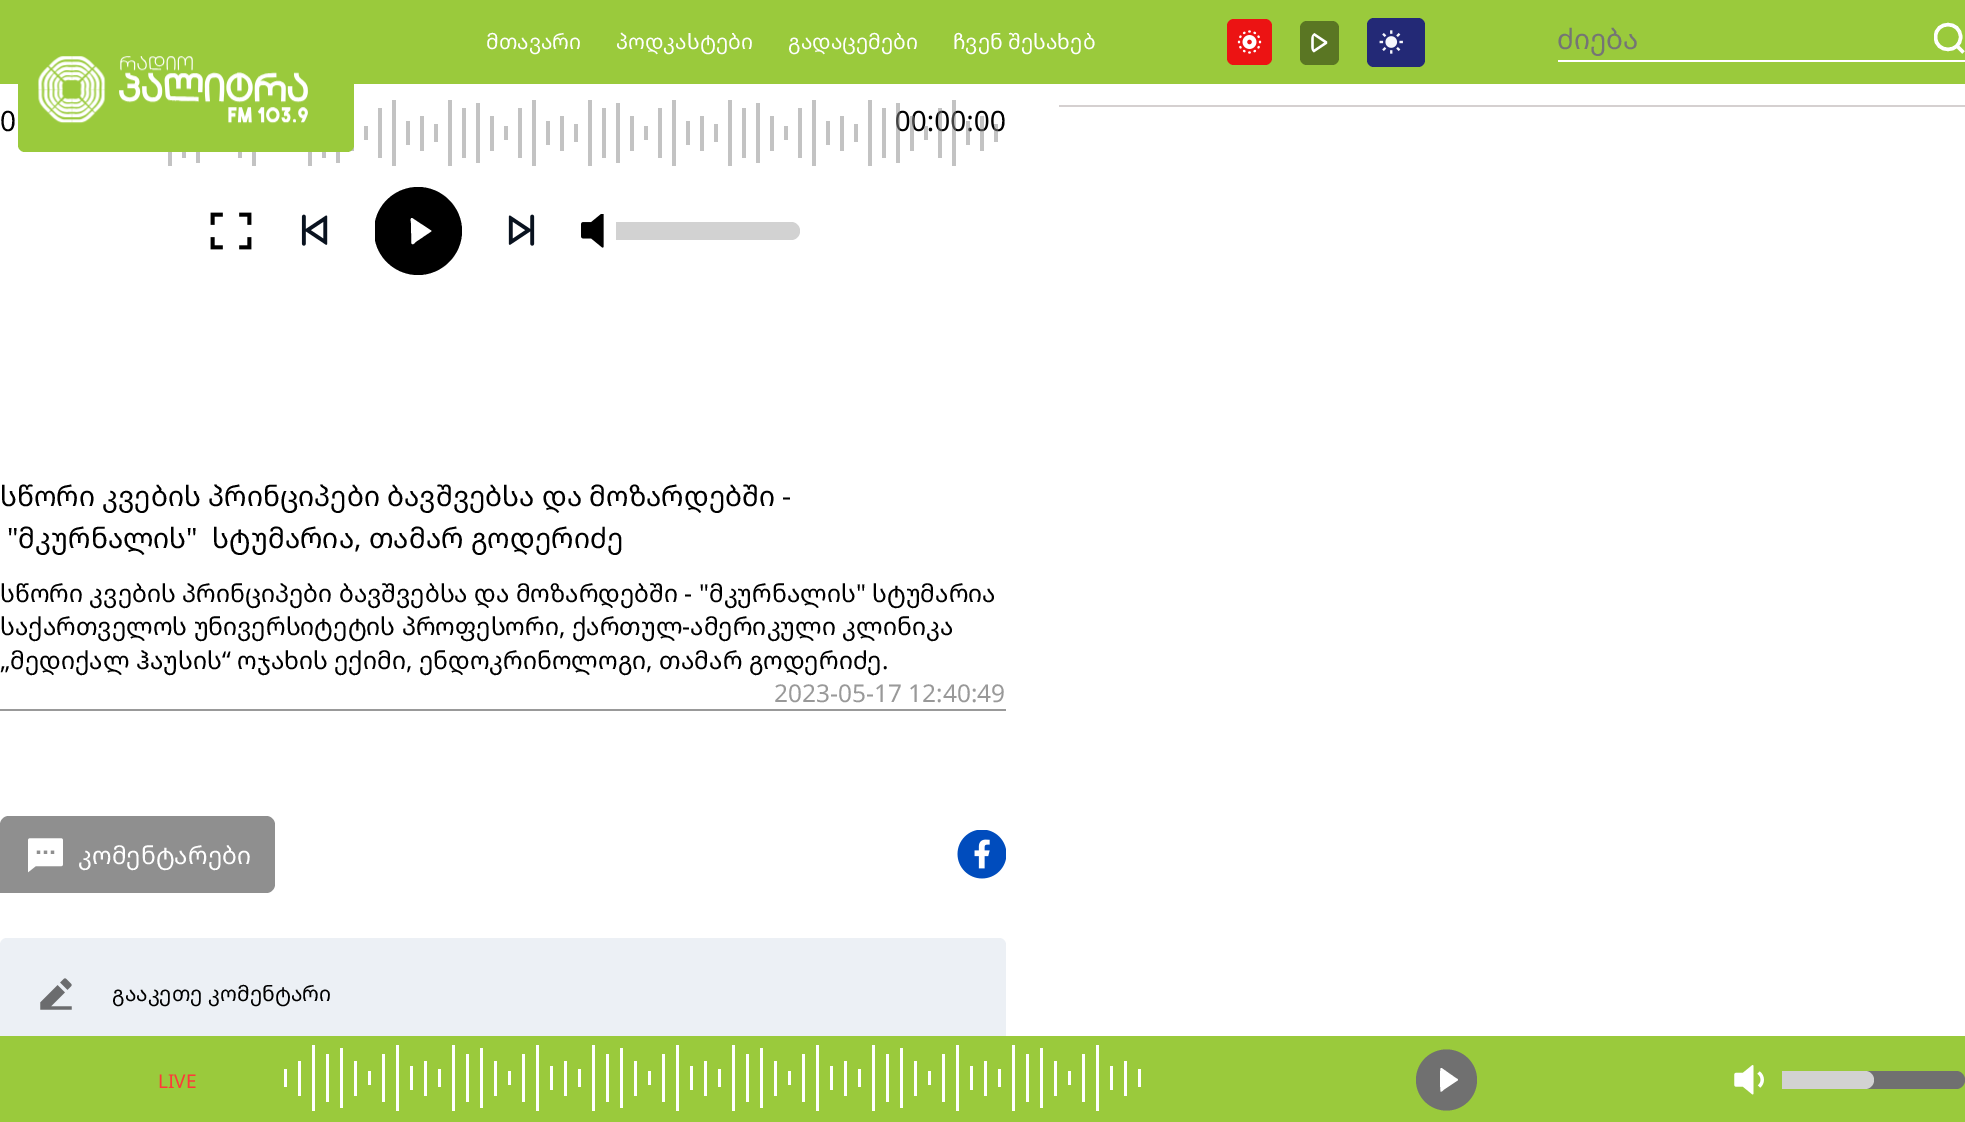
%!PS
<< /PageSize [1965 1122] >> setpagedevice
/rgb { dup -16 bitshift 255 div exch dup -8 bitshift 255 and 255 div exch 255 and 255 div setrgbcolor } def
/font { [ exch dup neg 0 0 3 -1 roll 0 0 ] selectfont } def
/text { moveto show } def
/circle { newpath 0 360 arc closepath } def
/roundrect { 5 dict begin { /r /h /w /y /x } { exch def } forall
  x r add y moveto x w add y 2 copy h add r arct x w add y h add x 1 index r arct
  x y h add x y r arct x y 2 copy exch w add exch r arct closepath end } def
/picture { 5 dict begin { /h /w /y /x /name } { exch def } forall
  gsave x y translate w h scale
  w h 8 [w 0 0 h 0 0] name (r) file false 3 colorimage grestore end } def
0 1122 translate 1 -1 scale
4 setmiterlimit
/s1 { /NotoSansGeorgian-Regular 21 font 16#FFFFFF rgb } def
/s2 { /NotoSansGeorgian-Regular 28 font 16#757575 rgb } def
/s3 { /NotoSansGeorgian-Regular 28 font 16#000000 rgb } def
/s4 { /NotoSansGeorgian-Regular 24.5 font 16#000000 rgb } def
/s5 { /NotoSansGeorgian-Regular 24.5 font 16#999999 rgb } def
/s6 { /NotoSansGeorgian-Regular 24.5 font 16#FFFFFF rgb } def
/s7 { /NotoSansGeorgian-Regular 21 font 16#000000 rgb } def
/s8 { /NotoSansGeorgian-Regular 19 font 16#FF3939 rgb } def
16#FFFFFF rgb
0 0 1965 1122 rectfill
16#9ACA3C rgb
0 0 1965 84 rectfill
s1
(მთავარი) 486 49 text
(პოდკასტები) 616 49 text
(გადაცემები) 788 49 text
(ჩვენ შესახებ) 953 49 text
16#EC1313 rgb
1227 19 45 46 7 roundrect fill
(pic1.raw) 1237 30 25 24 picture
16#5A7623 rgb
1300 21 39 44 7 roundrect fill
(pic2.raw) 1311 33 17 20 picture
16#232976 rgb
1367 18 58 49 7 roundrect fill
(pic3.raw) 1379 30 24 24 picture
16#FFFFFF rgb
1558 60 407 2 rectfill
s2
(ძიება) 1557 49 text
gsave
1934 18 31 42 rectclip
16#FFFFFF rgb
3.5 setlinewidth
1 setlinecap
1963.5 52.5 moveto 1957 46 lineto closepath 1960.5 37 moveto 1960.5 53.5 1935.5 53.5 1935.5 37 curveto 1935.5 20.5 1960.5 20.5 1960.5 37 curveto closepath stroke
grestore
s3
(00:00:00) 895 131 text
(pic6.raw) 168 100 830 66 picture
16#9ACA3C rgb
18 56 336 96 7 roundrect fill
(pic4.raw) 38 56 68 68 picture
(pic5.raw) 119 56 189 68 picture
16#D5D0D0 rgb
1059 105 906 2 rectfill
s3
(0) 0 131 text
(pic7.raw) 210 212 42 38 picture
(pic8.raw) 301 214 27 32 picture
418 187 moveto 397 187 379 202 375 222 curveto 375 240 lineto 379 260 397 275 418 275 curveto 442 275 462 255 462 231 curveto 462 207 442 187 418 187 curveto closepath fill
16#FFFFFF rgb
431 231.5 moveto 415.5 242 lineto 414.5 243 413 245 412 244 curveto 411.5 243.5 lineto 411 223 lineto 411 221 410 219 411.5 218 curveto 412 218 lineto 431 230.5 lineto 431.5 230.5 431.5 231 431.5 231.5 curveto closepath fill
(pic9.raw) 508 214 27 32 picture
(pic10.raw) 581 214 23 34 picture
16#D2D2D2 rgb
616 222 moveto 791 222 lineto 796 222 800 226 800 231 curveto 800 236 796 240 791 240 curveto 616 240 lineto closepath fill
s3
(სწორი კვების პრინციპები ბავშვებსა და მოზარდებში -) 0 506 text
("მკურნალის"  სტუმარია, თამარ გოდერიძე) 7 548 text
s4
(სწორი კვების პრინციპები ბავშვებსა და მოზარდებში - "მკურნალის" სტუმარია) 0 602 text
(საქართველოს უნივერსიტეტის პროფესორი, ქართულ-ამერიკული კლინიკა) 0 635 text
(„მედიქალ ჰაუსის“ ოჯახის ექიმი, ენდოკრინოლოგი, თამარ გოდერიძე.) 0 669 text
16#999999 rgb
0 709 1006 2 rectfill
(2023-05-17 12:40:49) 774 702 text
16#8F8F8F rgb
9 816 moveto 266 816 lineto 271 816 275 820 275 825 curveto 275 884 lineto 275 889 271 893 266 893 curveto 0 893 lineto 0 825 lineto 0 820 4 816 9 816 curveto closepath fill
(pic11.raw) 28 838 35 35 picture
s6
(კომენტარები) 78 864 text
(pic12.raw) 957 830 49 49 picture
16#ECF0F5 rgb
0 938 1006 175 7 roundrect fill
(pic13.raw) 40 978 32 32 picture
s7
(გააკეთე კომენტარი) 112 1001 text
16#9ACA3C rgb
0 1036 1965 86 rectfill
s8
(LIVE) 158 1088 text
(pic14.raw) 284 1045 857 66 picture
16#707070 rgb
1446.5 1080 30.5 circle fill
16#FFFFFF rgb
1457.5 1080.5 moveto 1444 1089.5 lineto 1443 1090 1442 1092 1440.5 1091.5 curveto 1440.5 1090.5 lineto 1440 1088.5 1440 1068.5 1440.5 1068.5 curveto 1441.5 1068 lineto 1455 1077.5 lineto 1456.5 1078.5 1459 1079.5 1457.5 1080.5 curveto closepath fill
(pic15.raw) 1734 1065 30 30 picture
16#707070 rgb
1782 1071 183 18 9 roundrect fill
16#D2D2D2 rgb
1782 1071 moveto 1865 1071 lineto 1870 1071 1874 1075 1874 1080 curveto 1874 1085 1870 1089 1865 1089 curveto 1782 1089 lineto closepath fill
showpage
